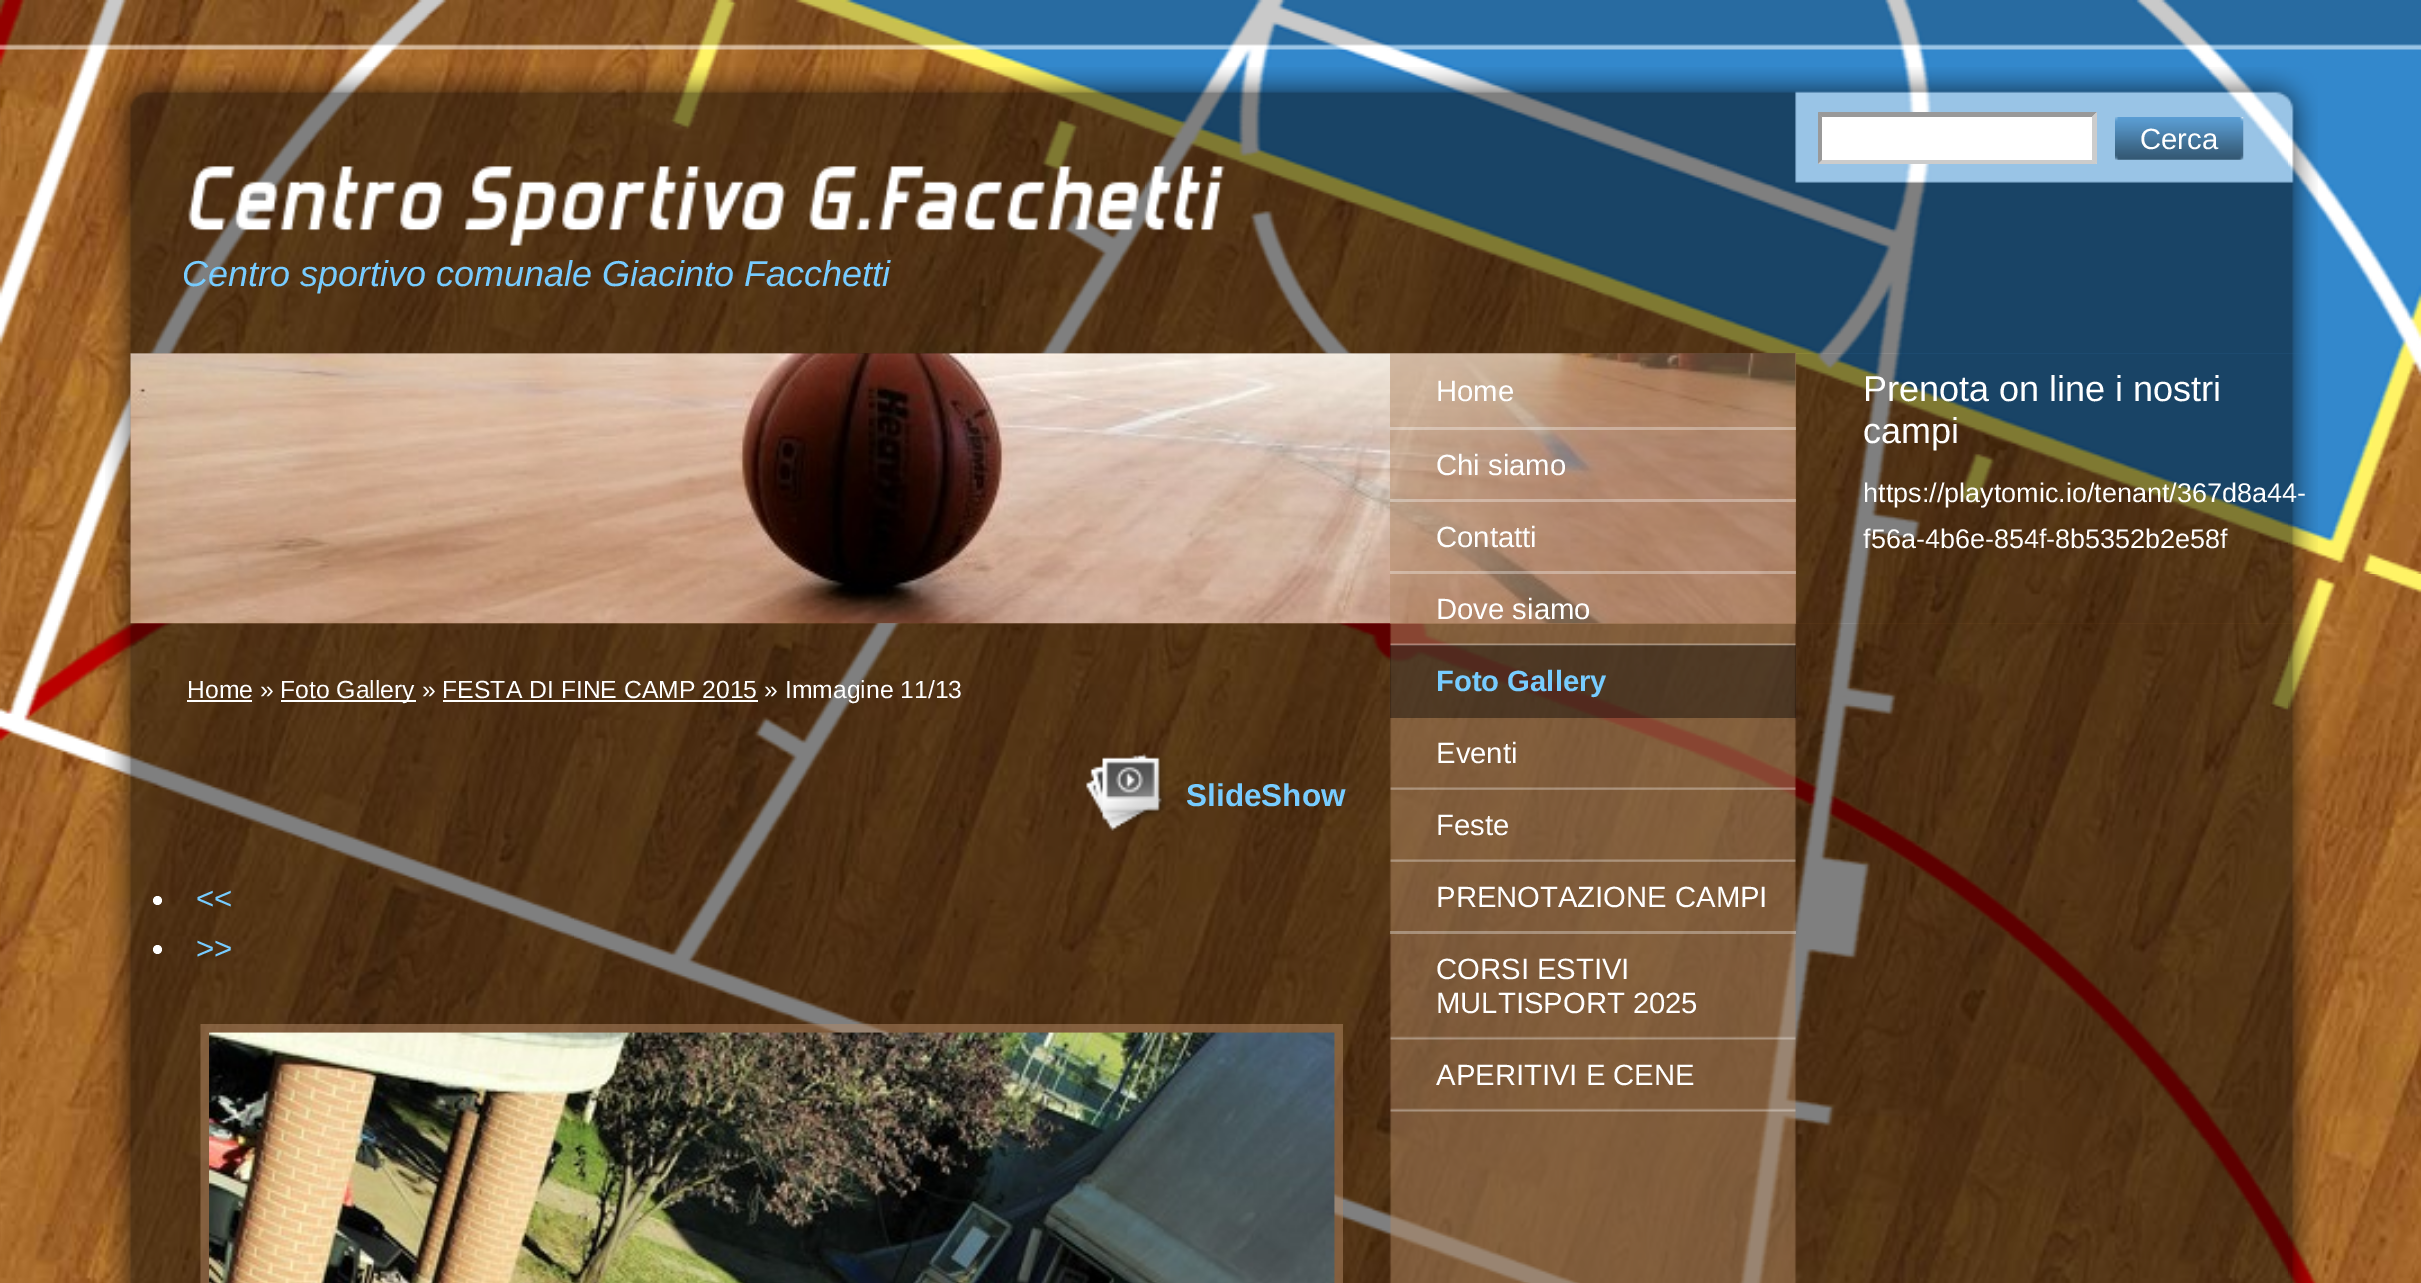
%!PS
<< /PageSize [2421 1283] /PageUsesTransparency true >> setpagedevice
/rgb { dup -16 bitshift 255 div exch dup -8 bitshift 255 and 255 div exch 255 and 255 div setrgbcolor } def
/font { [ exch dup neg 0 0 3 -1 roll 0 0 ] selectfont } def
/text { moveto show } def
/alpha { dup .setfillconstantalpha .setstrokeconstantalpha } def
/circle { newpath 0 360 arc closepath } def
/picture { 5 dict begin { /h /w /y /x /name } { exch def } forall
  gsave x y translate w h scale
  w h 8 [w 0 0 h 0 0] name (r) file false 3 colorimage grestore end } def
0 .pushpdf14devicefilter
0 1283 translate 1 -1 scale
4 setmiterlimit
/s1 { /LiberationSans-Regular 29.25 font 16#FFFFFF rgb } def
/s2 { /LiberationSans-Italic 36 font 16#77CCFF rgb } def
/s3 { /LiberationSans-Regular 24.75 font 16#FFFFFF rgb } def
/s4 { /LiberationSans-Bold 31.5 font 16#77CCFF rgb } def
/s5 { /LiberationSans-Regular 31.5 font 16#77CCFF rgb } def
/s6 { /LiberationSans-Bold 29.25 font 16#77CCFF rgb } def
/s7 { /LiberationSans-Regular 36 font 16#FFFFFF rgb } def
/s8 { /LiberationSans-Regular 27 font 16#FFFFFF rgb } def
16#FFFFFF rgb
0 0 2421 1283 rectfill
(pic1.raw) 0 0 2421 1283 picture
(pic4.raw) 0 0 2421 1283 picture
(pic2.raw) 0 0 2421 50 picture
(pic9.raw) 105 623 2213 660 picture
(pic6.raw) 105 353 2213 271 picture
(pic8.raw) 130 353 1666 271 picture
0.5 alpha
16#B38966 rgb
1390 353 406 271 rectfill
1 alpha
(pic3.raw) 105 67 2213 287 picture
16#FFFFFF rgb
1818 113 279 51 rectfill
16#999999 rgb
1818 112 moveto 2097 112 lineto 2092 117 lineto 1822 117 lineto closepath fill
16#CCCCCC rgb
2097 112 moveto 2097 164 lineto 2092 160 lineto 2092 117 lineto closepath fill
2097 164 moveto 1818 164 lineto 1822 160 lineto 2092 160 lineto closepath fill
16#999999 rgb
1818 164 moveto 1818 112 lineto 1822 117 lineto 1822 160 lineto closepath fill
(pic5.raw) 2115 117 129 43 picture
s1
(Cerca) 2140 149 text
(pic7.raw) 188 166 1037 80 picture
s2
(Centro sportivo comunale Giacinto Facchetti) 182 286 text
s3
(Home ») 187 698 text
187 700 65 2 rectfill
281 700 135 2 rectfill
(Foto Gallery » FESTA DI FINE CAMP 2015 » Immagine 11/13) 280 698 text
443 700 315 2 rectfill
(pic10.raw) 1086 753 80 79 picture
s4
(SlideShow) 1186 806 text
16#FFFFFF rgb
157.5 900.5 4.5 circle fill
s5
(<<) 196 909 text
16#FFFFFF rgb
157.5 949.5 4.5 circle fill
s5
(>>) 196 959 text
(pic11.raw) 200 1024 1143 259 picture
(pic12.raw) 209 1032 1126 251 picture
0.33 alpha
16#FFFFFF rgb
1390 427 406 3 rectfill
1 alpha
s1
(Home) 1436 401 text
0.33 alpha
1390 499 406 3 rectfill
1 alpha
(Chi siamo) 1436 475 text
0.33 alpha
1390 571 406 3 rectfill
1 alpha
(Contatti) 1436 547 text
(pic13.raw) 1390 643 406 3 picture
(Dove siamo) 1436 619 text
0.4 alpha
16#000000 rgb
1390 645 406 73 rectfill
1 alpha
s6
(Foto Gallery) 1436 691 text
(pic14.raw) 1390 787 406 3 picture
s1
(Eventi) 1436 763 text
(pic15.raw) 1390 859 406 3 picture
(Feste) 1436 835 text
0.33 alpha
1390 931 406 3 rectfill
1 alpha
(PRENOTAZIONE CAMPI) 1436 907 text
(pic16.raw) 1390 1036 406 4 picture
(CORSI ESTIVI) 1436 979 text
(MULTISPORT 2025) 1436 1013 text
(pic17.raw) 1390 1108 406 4 picture
(APERITIVI E CENE) 1436 1085 text
s7
(Prenota on line i nostri) 1863 401 text
(campi) 1863 443 text
s8
(https://playtomic.io/tenant/367d8a44-) 1863 502 text
(f56a-4b6e-854f-8b5352b2e58f) 1863 548 text
.poppdf14devicefilter showpage
